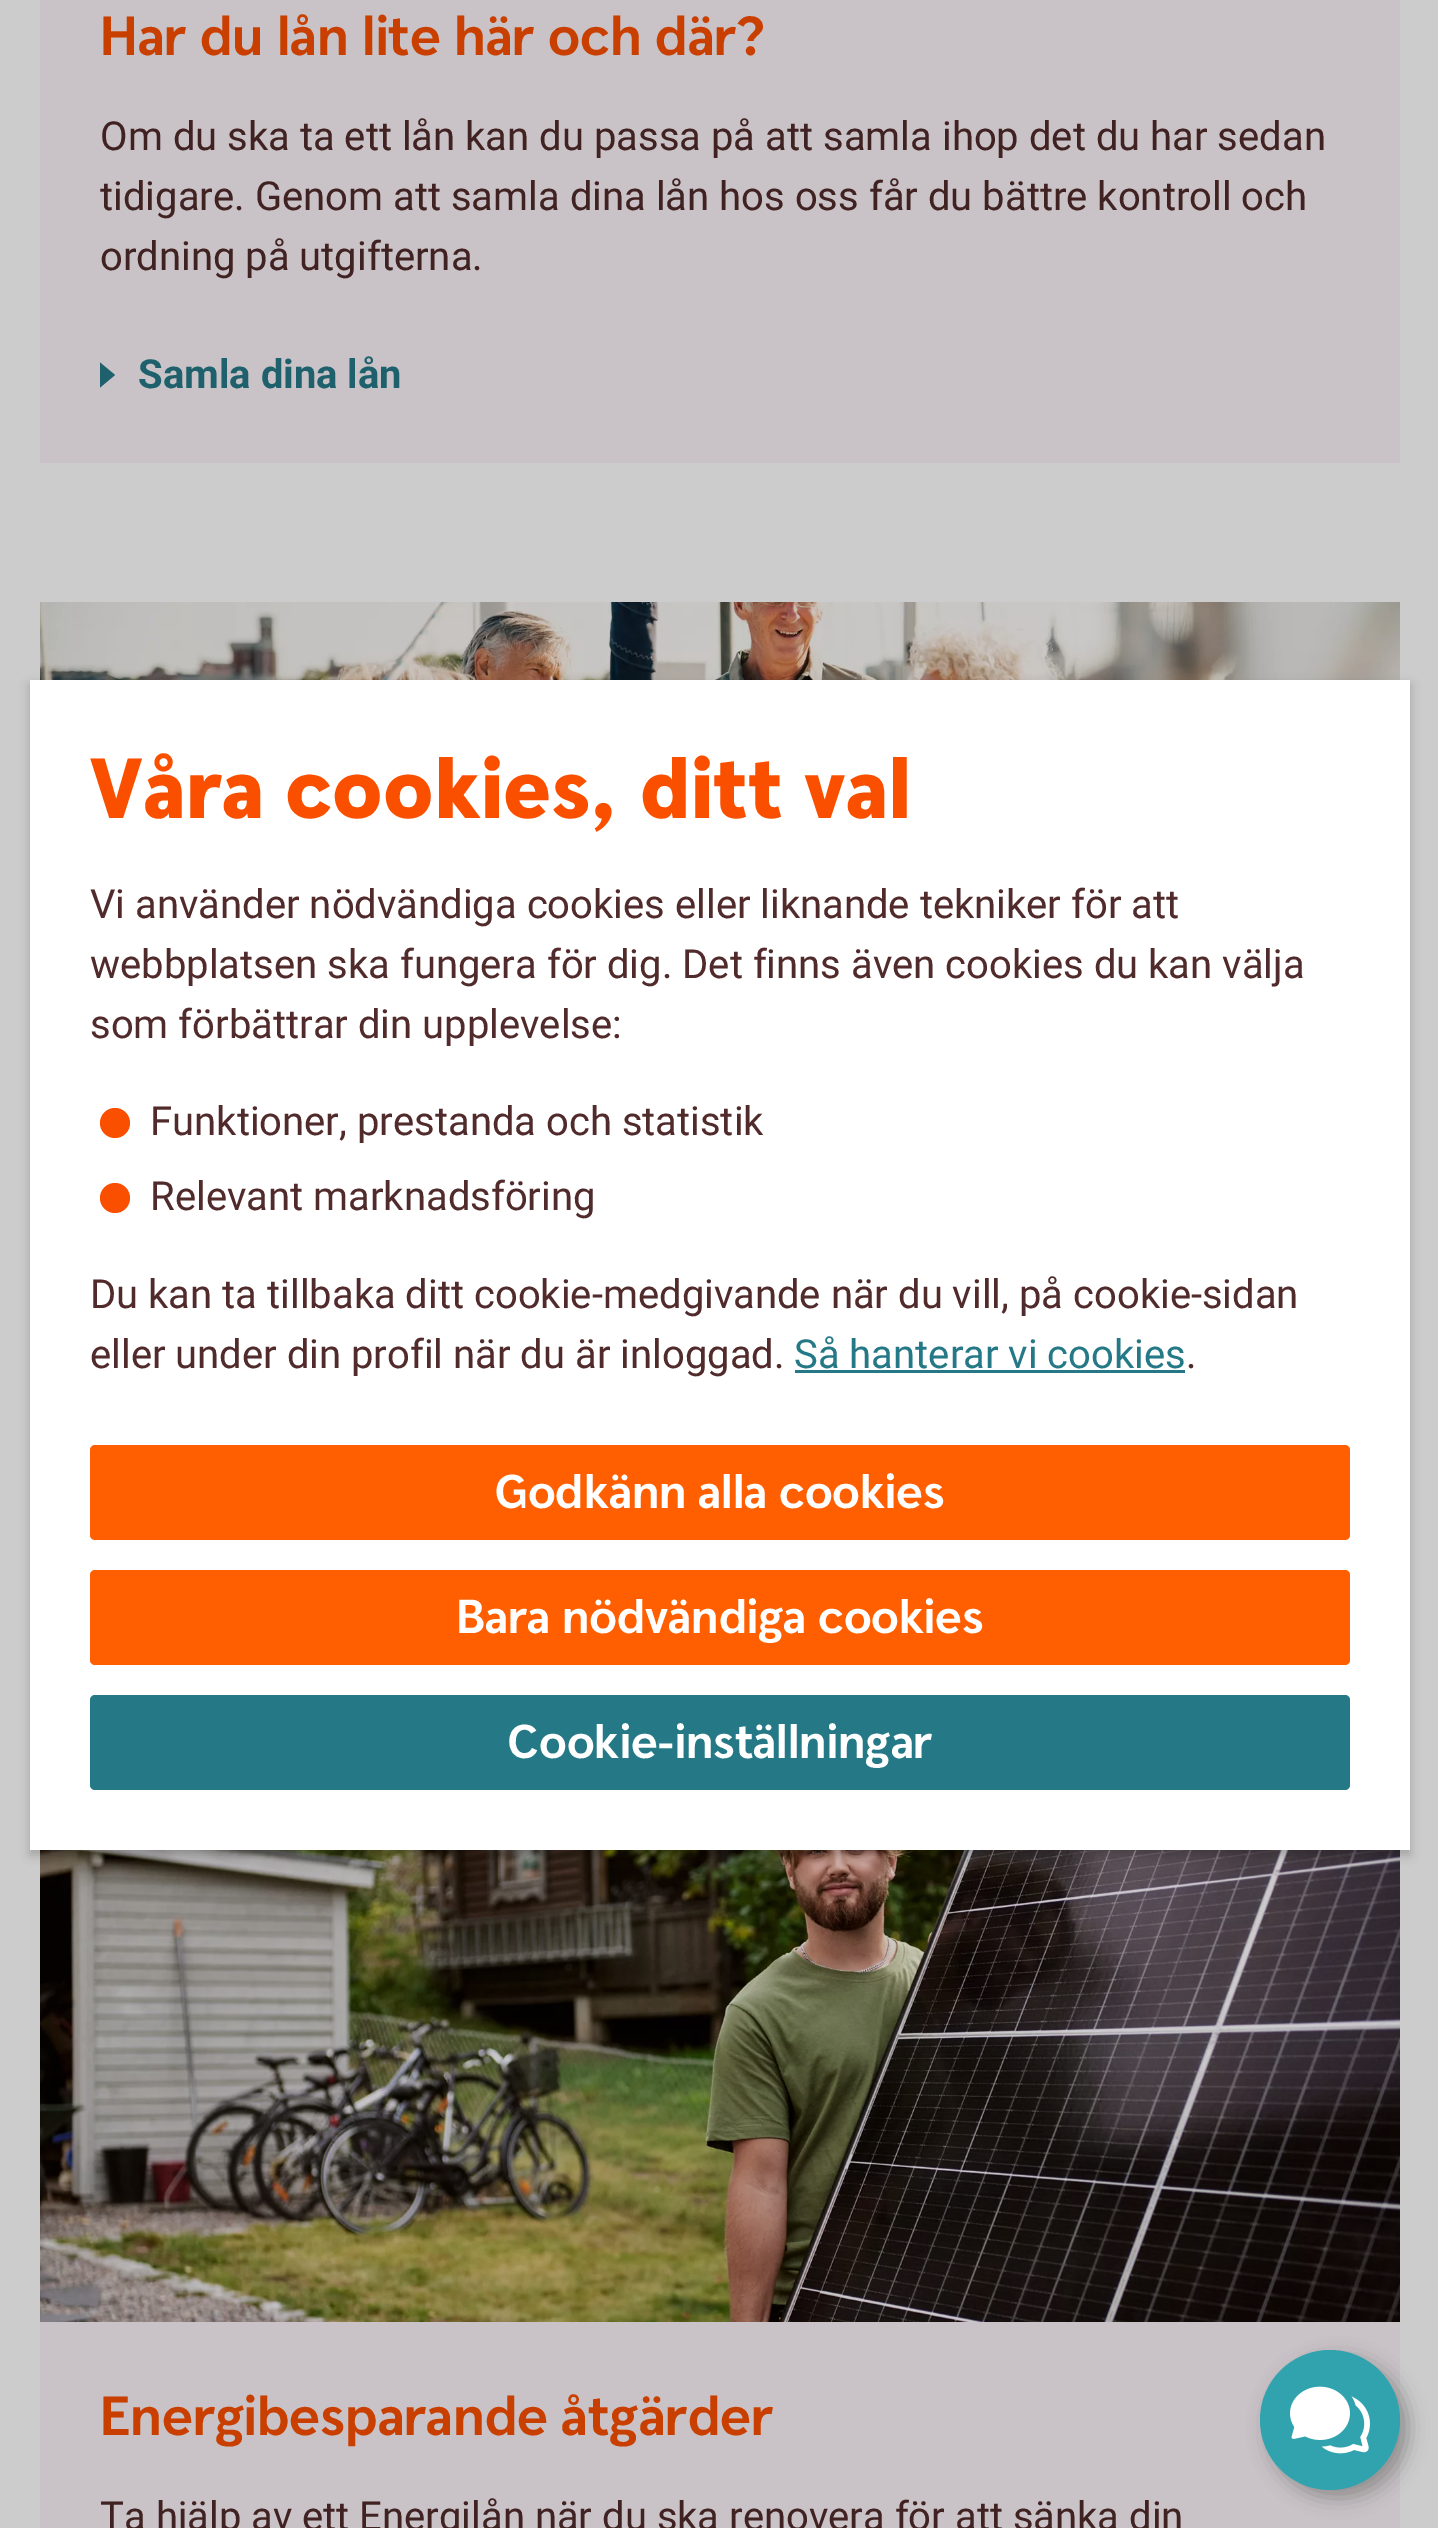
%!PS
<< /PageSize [1438 2528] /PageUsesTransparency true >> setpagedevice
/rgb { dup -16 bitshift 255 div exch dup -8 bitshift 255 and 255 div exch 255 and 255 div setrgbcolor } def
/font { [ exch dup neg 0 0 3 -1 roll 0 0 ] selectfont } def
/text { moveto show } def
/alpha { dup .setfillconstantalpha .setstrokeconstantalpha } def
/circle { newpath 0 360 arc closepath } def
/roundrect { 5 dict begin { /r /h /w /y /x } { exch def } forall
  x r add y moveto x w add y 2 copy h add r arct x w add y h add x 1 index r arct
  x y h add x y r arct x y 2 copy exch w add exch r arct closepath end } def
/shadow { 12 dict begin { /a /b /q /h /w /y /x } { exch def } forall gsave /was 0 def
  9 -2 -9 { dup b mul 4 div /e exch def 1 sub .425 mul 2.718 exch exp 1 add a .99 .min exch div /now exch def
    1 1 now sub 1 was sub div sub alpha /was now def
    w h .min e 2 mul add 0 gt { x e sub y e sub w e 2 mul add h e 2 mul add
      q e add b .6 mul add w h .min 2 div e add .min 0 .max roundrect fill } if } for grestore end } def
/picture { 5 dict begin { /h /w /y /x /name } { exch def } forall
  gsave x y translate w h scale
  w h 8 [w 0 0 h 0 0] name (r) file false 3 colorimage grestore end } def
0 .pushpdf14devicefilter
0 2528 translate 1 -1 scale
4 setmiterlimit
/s1 { /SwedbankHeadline-Bold 55 font 16#C93F00 rgb } def
/s2 { /Roboto-Regular 40 font 16#412222 rgb } def
/s3 { /Roboto-Bold 40 font 16#1E606B rgb } def
/s4 { /SwedbankHeadline-Black 85 font 16#FB4F00 rgb } def
/s5 { /Roboto-Regular 40 font 16#512B2B rgb } def
/s6 { /Roboto-Regular 40 font 16#257886 rgb } def
/s7 { /SwedbankHeadline-Bold 47.5 font 16#FFFFFF rgb } def
16#CCCCCC rgb
0 0 1438 2528 rectfill
16#C9C2C6 rgb
40 0 1360 463 rectfill
s1
(Har du lån lite här och där?) 100 55 text
s2
(Om du ska ta ett lån kan du passa på att samla ihop det du har sedan) 100 150 text
(tidigare. Genom att samla dina lån hos oss får du bättre kontroll och) 100 210 text
(ordning på utgifterna.) 100 270 text
16#1E606B rgb
115 375 moveto 100 387.5 lineto 100 362.5 lineto closepath fill
s3
(Samla dina lån) 138 388 text
(pic1.raw) 40 602 1360 78 picture
16#C9C2C6 rgb
40 2322 1360 206 rectfill
(pic2.raw) 40 1850 1360 472 picture
s1
(Energibesparande åtgärder) 100 2435 text
s2
(Ta hjälp av ett Energilån när du ska renovera för att sänka din) 100 2530 text
16#000000 rgb
30 685 1380 1170 0 5 0.2 shadow
16#FFFFFF rgb
30 680 1380 1170 rectfill
s4
(Våra cookies, ditt val) 90 818 text
s5
(Vi använder nödvändiga cookies eller liknande tekniker för att) 90 918 text
(webbplatsen ska fungera för dig. Det finns även cookies du kan välja) 90 978 text
(som förbättrar din upplevelse:) 90 1038 text
16#FB4F00 rgb
115 1123 15 circle fill
s5
(Funktioner, prestanda och statistik) 150 1135 text
16#FB4F00 rgb
115 1198 15 circle fill
s5
(Relevant marknadsföring) 150 1210 text
(Du kan ta tillbaka ditt cookie-medgivande när du vill, på cookie-sidan) 90 1308 text
(eller under din profil när du är inloggad.) 90 1368 text
s6
(Så hanterar vi cookies) 794 1368 text
795 1370 390 3 rectfill
s5
(.) 1186 1368 text
16#FF5F00 rgb
90 1445 1260 95 5 roundrect fill
s7
(Godkänn alla cookies) 495 1508 text
16#FF5F00 rgb
90 1570 1260 95 5 roundrect fill
s7
(Bara nödvändiga cookies) 456 1633 text
16#257886 rgb
90 1695 1260 95 5 roundrect fill
s7
(Cookie-inställningar) 508 1758 text
16#908E8E rgb
1268 2358 140 140 70 10 1 shadow
16#31A3AE rgb
1330 2420 70 circle fill
(pic3.raw) 1290 2386 80 68 picture
.poppdf14devicefilter showpage
